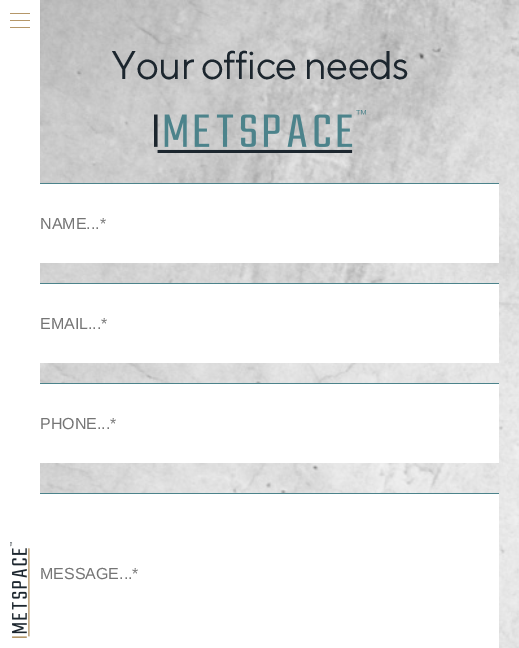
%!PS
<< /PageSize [519 648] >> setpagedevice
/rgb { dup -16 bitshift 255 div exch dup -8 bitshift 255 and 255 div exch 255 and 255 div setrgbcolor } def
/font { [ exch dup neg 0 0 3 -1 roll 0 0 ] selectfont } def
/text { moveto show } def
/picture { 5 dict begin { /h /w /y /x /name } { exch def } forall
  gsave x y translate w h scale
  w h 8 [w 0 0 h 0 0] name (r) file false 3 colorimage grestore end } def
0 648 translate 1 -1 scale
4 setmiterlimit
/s1 { /LiberationSans-Regular 16 font 16#757575 rgb } def
16#FFFFFF rgb
0 0 519 648 rectfill
16#B59769 rgb
10 13 20 1 rectfill
10 20 20 1 rectfill
10 27 20 1 rectfill
(pic1.raw) 10 542 20 96 picture
(pic2.raw) 40 0 479 648 picture
/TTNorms-Regular 40 font
16#1C262E rgb
111 79 moveto -0.75 0 (Your office needs) ashow
(pic3.raw) 154 110 212 43 picture
16#FFFFFF rgb
40 184 459 79 rectfill
16#4C838B rgb
40 183 459 1 rectfill
s1
(NAME...*) 40 229 text
16#FFFFFF rgb
40 284 459 79 rectfill
16#4C838B rgb
40 283 459 1 rectfill
s1
(EMAIL...*) 40 329 text
16#FFFFFF rgb
40 384 459 79 rectfill
16#4C838B rgb
40 383 459 1 rectfill
s1
(PHONE...*) 40 429 text
16#FFFFFF rgb
40 494 459 154 rectfill
16#4C838B rgb
40 493 459 1 rectfill
s1
(MESSAGE...*) 40 579 text
showpage
